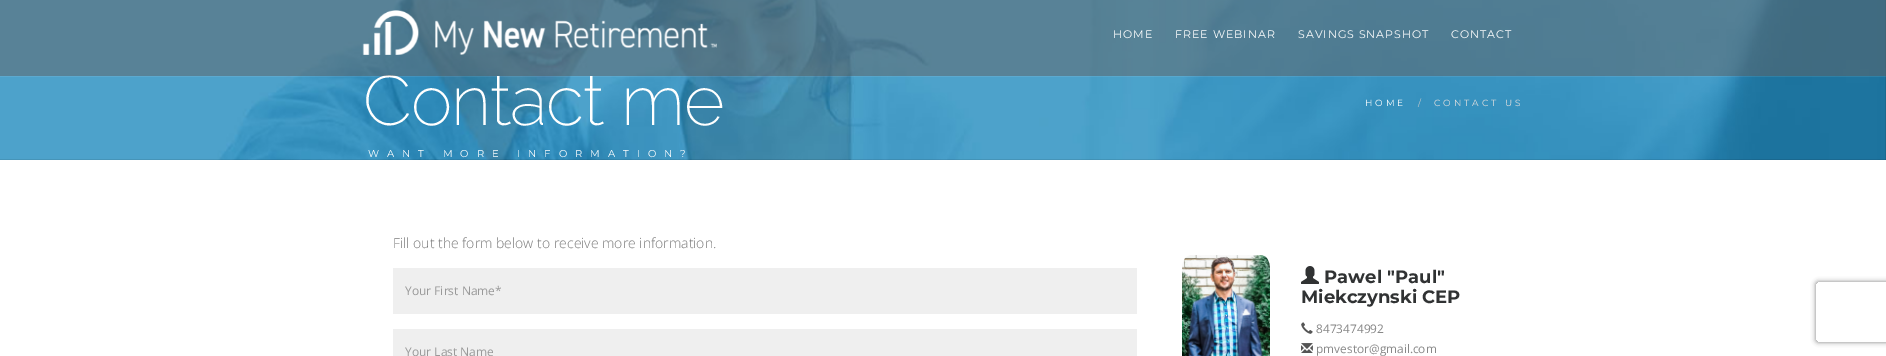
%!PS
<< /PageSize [1886 356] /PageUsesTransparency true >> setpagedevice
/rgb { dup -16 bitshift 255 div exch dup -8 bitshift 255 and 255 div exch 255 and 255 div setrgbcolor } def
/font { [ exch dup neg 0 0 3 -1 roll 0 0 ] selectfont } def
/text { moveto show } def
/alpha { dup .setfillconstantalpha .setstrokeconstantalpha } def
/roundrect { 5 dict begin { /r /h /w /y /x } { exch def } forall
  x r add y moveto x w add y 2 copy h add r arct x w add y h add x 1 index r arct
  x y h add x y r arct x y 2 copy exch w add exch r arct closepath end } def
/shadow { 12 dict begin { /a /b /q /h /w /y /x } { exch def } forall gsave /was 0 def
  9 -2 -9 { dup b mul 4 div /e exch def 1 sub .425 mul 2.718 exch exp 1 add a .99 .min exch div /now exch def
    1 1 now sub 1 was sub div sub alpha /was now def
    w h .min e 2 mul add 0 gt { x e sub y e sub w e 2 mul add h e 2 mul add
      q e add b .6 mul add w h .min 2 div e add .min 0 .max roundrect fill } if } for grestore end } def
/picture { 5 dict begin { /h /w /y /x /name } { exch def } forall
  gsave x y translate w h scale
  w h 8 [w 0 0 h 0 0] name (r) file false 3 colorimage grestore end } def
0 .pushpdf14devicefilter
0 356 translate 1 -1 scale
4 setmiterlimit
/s1 { /OpenSans-Light 14 font 16#7A7A7A rgb } def
/s2 { /OpenSans-Regular 12 font 16#999999 rgb } def
/s3 { /Montserrat-Bold 18 font 16#303233 rgb } def
/s4 { /OpenSans-Regular 11.9 font 16#888888 rgb } def
16#FFFFFF rgb
0 0 1886 356 rectfill
(pic2.raw) 0 0 1886 160 picture
gsave
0 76 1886 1 rectclip
-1 -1 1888 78 0 0.5 0.1 shadow
grestore
/Raleway-ExtraLight 70 font
363 125 moveto -1 0 (Contact me) ashow
0.5 alpha
16#636363 rgb
0 0 1886 76 rectfill
1 alpha
(pic1.raw) 362 10 355 45 picture
/Montserrat-Regular 11 font
16#FFFFFF rgb
1113 38 moveto 1 0 (HOME) ashow
1175 38 moveto 1 0 (FREE WEBINAR) ashow
1298 38 moveto 1 0 (SAVINGS SNAPSHOT) ashow
1451 38 moveto 1 0 (CONTACT) ashow
/Montserrat-Regular 9 font
1365 106 moveto 3 0 (HOME) ashow
16#CCCCCC rgb
1418 106 moveto 3 0 (/) ashow
16#DDDDDD rgb
1434 106 moveto 3 0 (CONTACT US) ashow
/Montserrat-Regular 10 font
16#FFFFFF rgb
368 157 moveto 8 0 (WANT MORE INFORMATION?) ashow
s1
(Fill out the form below to receive more information.) 393 248 text
16#EFEFEF rgb
393 268 744 46 rectfill
s2
(Your First Name*) 405 295 text
16#EFEFEF rgb
393 329 744 27 rectfill
s2
(Your Last Name) 405 356 text
gsave
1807 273 moveto 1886 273 lineto 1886 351 lineto 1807 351 lineto closepath 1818 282 moveto 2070 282 lineto 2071 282 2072 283 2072 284 curveto 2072 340 lineto 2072 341 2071 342 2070 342 curveto 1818 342 lineto 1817 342 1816 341 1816 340 curveto 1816 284 lineto 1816 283 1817 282 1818 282 curveto closepath eoclip newpath
16#808080 rgb
1816 282 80 60 2 2.5 1 shadow
grestore
(pic3.raw) 1182 255 88 101 picture
(pic4.raw) 1301 266 18 18 picture
s3
(Pawel "Paul") 1324 283 text
(Miekczynski CEP) 1301 303 text
(pic5.raw) 1301 322 12 12 picture
s4
(8473474992) 1316 333 text
(pic6.raw) 1301 343 12 10 picture
(pmvestor@gmail.com) 1316 353 text
.poppdf14devicefilter showpage
